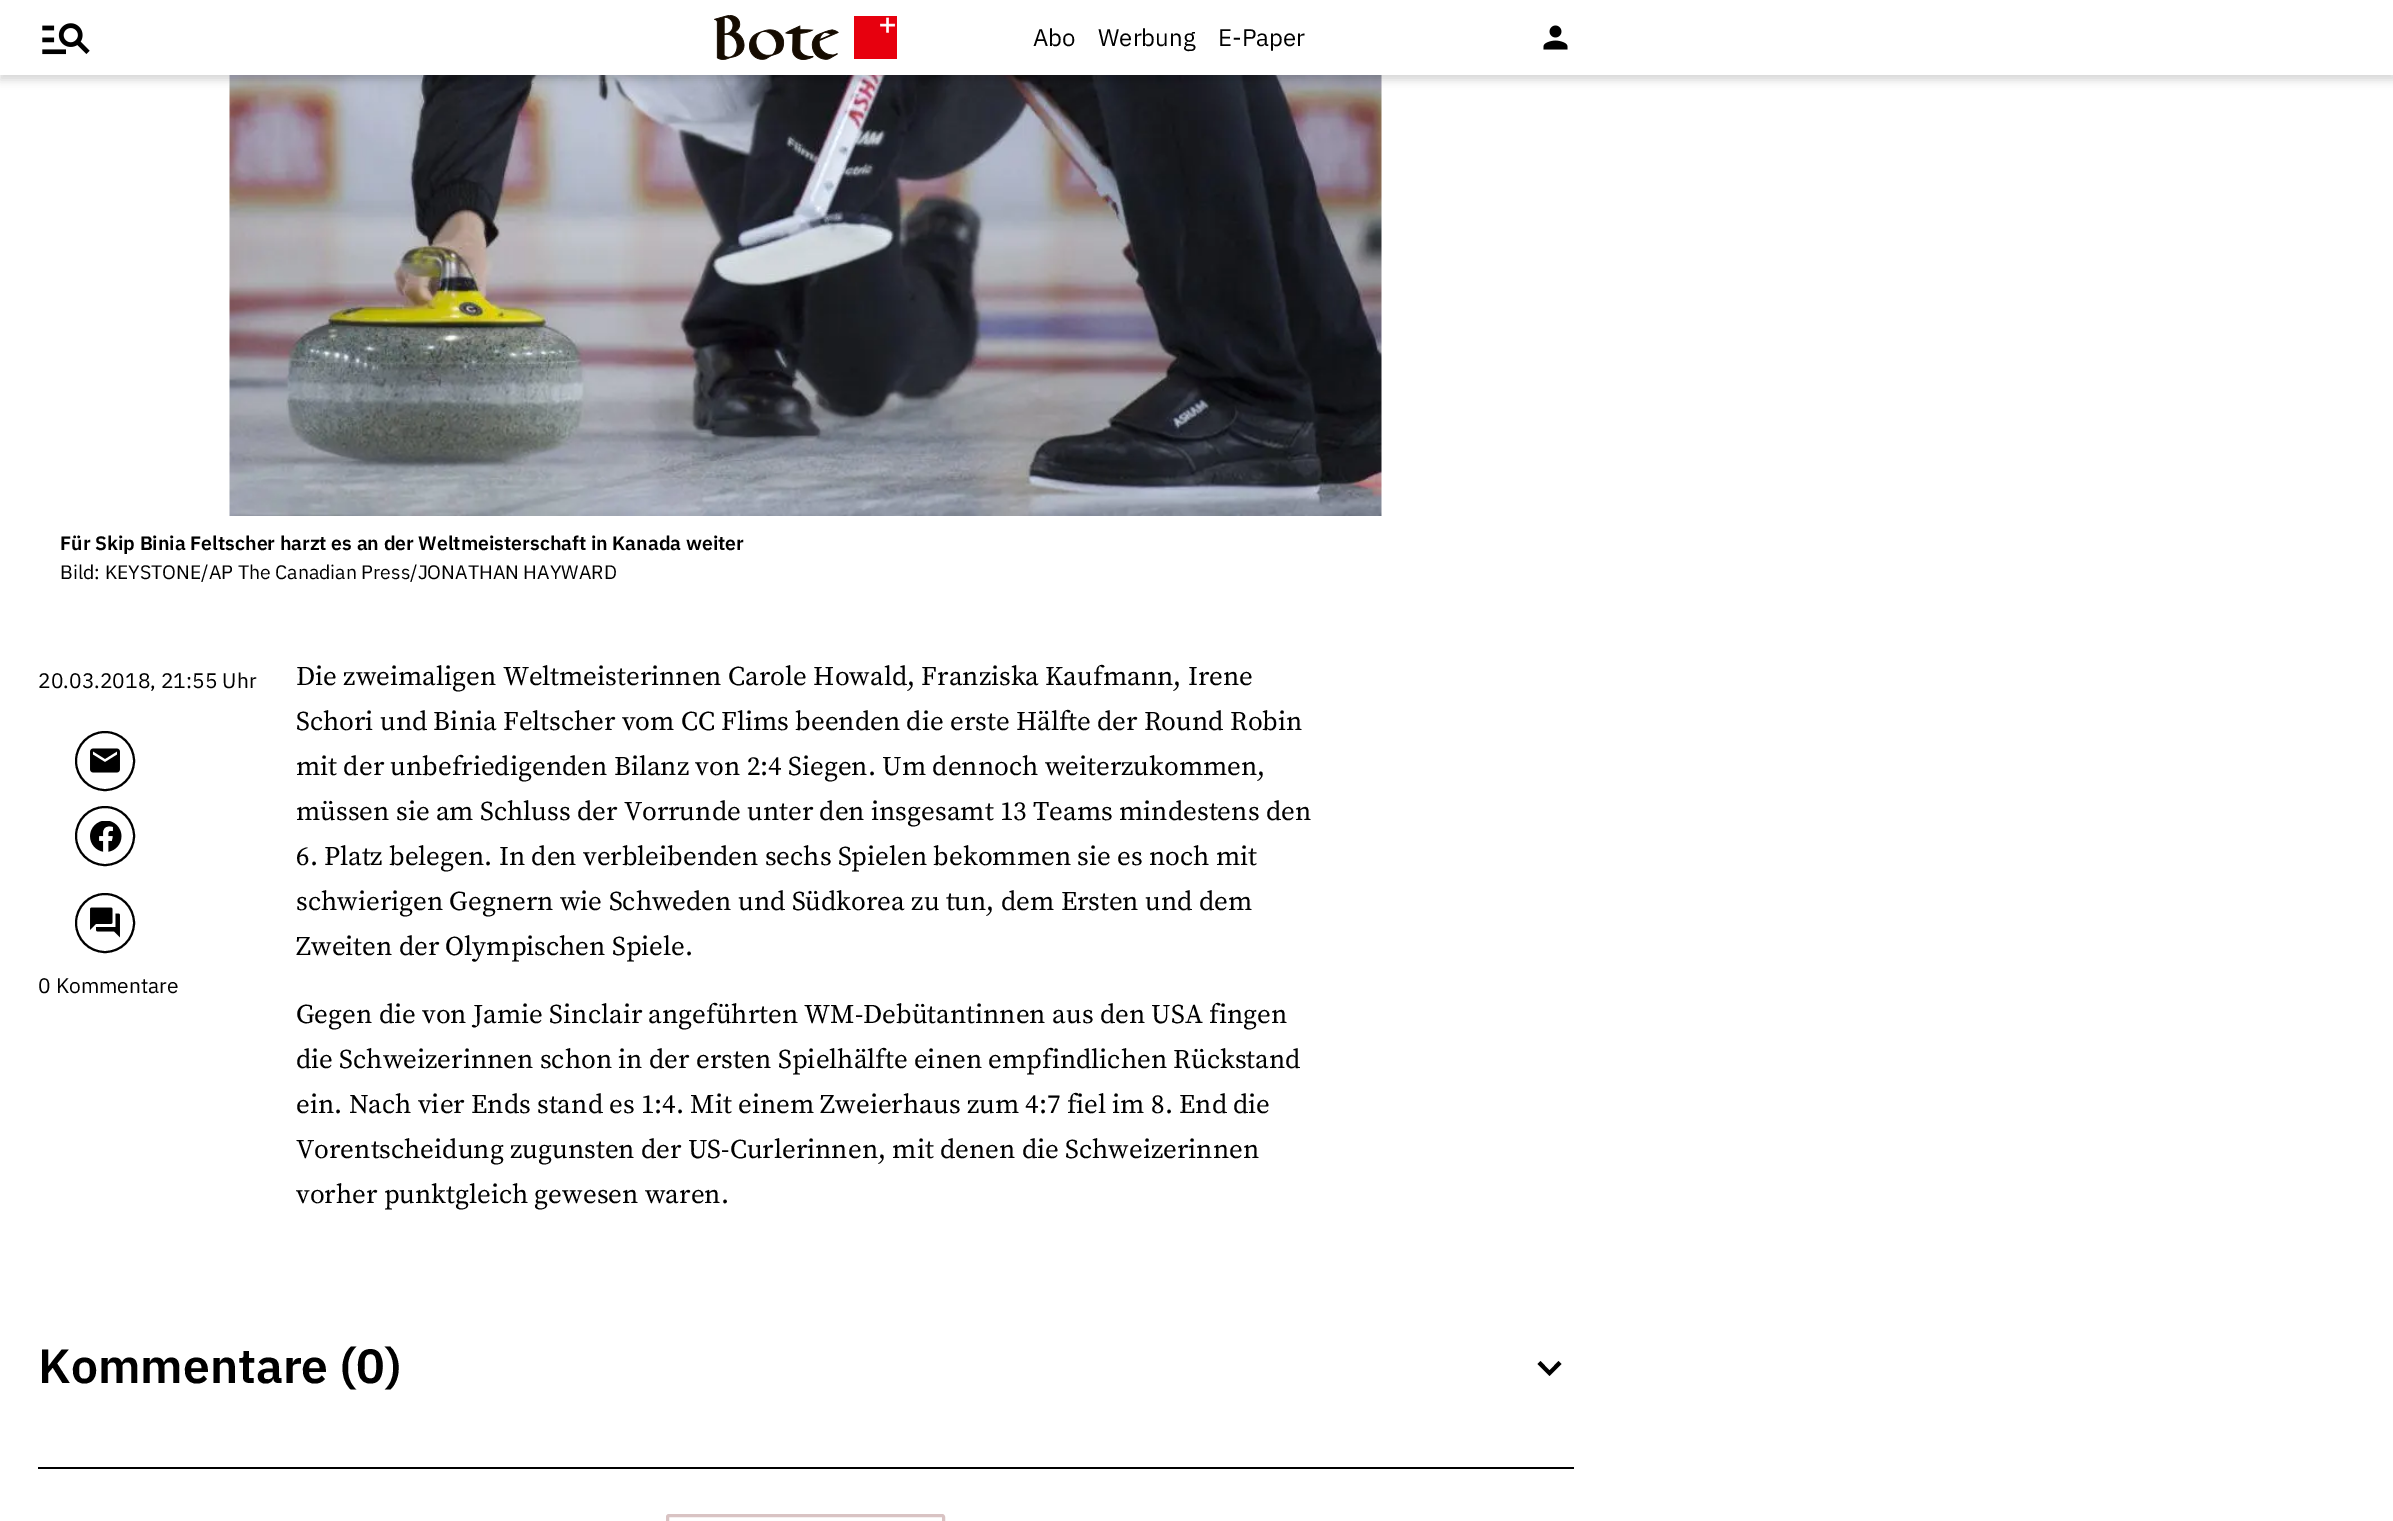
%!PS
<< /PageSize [2393 1521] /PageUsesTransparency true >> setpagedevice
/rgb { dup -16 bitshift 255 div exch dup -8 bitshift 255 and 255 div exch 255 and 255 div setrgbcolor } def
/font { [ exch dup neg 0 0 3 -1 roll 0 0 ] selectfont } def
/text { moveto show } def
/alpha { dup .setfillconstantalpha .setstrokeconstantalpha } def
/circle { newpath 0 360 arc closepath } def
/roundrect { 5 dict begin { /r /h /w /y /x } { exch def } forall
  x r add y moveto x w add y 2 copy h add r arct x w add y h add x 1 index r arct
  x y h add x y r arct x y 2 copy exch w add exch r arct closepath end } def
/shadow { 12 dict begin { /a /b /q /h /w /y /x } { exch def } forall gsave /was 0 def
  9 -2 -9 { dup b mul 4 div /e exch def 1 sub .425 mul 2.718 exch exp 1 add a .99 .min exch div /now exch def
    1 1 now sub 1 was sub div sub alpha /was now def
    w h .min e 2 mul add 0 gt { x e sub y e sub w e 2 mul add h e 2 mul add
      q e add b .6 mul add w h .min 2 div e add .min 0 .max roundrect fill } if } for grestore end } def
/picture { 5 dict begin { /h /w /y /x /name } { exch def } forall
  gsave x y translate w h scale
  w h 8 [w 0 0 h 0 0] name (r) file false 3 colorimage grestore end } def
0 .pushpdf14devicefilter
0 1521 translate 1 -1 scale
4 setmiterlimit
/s1 { /IBMPlexSans-Regular 24 font 16#000000 rgb } def
/s2 { /IBMPlexSans-SemiBold 19.5 font 16#000000 rgb } def
/s3 { /IBMPlexSans-Regular 19.5 font 16#000000 rgb } def
/s4 { /IBMPlexSans-Regular 21 font 16#000000 rgb } def
/s5 { /SourceSerifPro-Regular 27 font 16#000000 rgb } def
/s6 { /IBMPlexSans-SemiBold 48 font 16#000000 rgb } def
16#FFFFFF rgb
0 0 2393 1521 rectfill
(pic4.raw) 229 75 1153 441 picture
16#000000 rgb
0 5 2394 75 0 4.5 0.16 shadow
16#FFFFFF rgb
0 0 2393 75 rectfill
(pic1.raw) 42 23 48 32 picture
(pic2.raw) 714 15 183 45 picture
s1
(Abo) 1033 46 text
(Werbung) 1098 46 text
(E-Paper) 1218 46 text
(pic3.raw) 1543 25 25 25 picture
s2
(Für Skip Binia Feltscher harzt es an der Weltmeisterschaft in Kanada weiter) 60 550 text
s3
(Bild: KEYSTONE/AP The Canadian Press/JONATHAN HAYWARD) 60 579 text
s4
(20.03.2018, 21:55 Uhr) 38 688 text
2 setlinewidth
105 761 29 circle stroke
(pic5.raw) 90 748 30 25 picture
105 836 29 circle stroke
(pic6.raw) 90 821 32 31 picture
105 923 29 circle stroke
(pic7.raw) 90 907 30 31 picture
(0 Kommentare) 38 993 text
s5
(Die zweimaligen Weltmeisterinnen Carole Howald, Franziska Kaufmann, Irene) 296 685 text
(Schori und Binia Feltscher vom CC Flims beenden die erste Hälfte der Round Robin) 296 730 text
(mit der unbefriedigenden Bilanz von 2:4 Siegen. Um dennoch weiterzukommen,) 296 775 text
(müssen sie am Schluss der Vorrunde unter den insgesamt 13 Teams mindestens den) 296 820 text
(6. Platz belegen. In den verbleibenden sechs Spielen bekommen sie es noch mit) 296 865 text
(schwierigen Gegnern wie Schweden und Südkorea zu tun, dem Ersten und dem) 296 910 text
(Zweiten der Olympischen Spiele.) 296 955 text
(Gegen die von Jamie Sinclair angeführten WM-Debütantinnen aus den USA fingen) 296 1023 text
(die Schweizerinnen schon in der ersten Spielhälfte einen empfindlichen Rückstand) 296 1068 text
(ein. Nach vier Ends stand es 1:4. Mit einem Zweierhaus zum 4:7 fiel im 8. End die) 296 1113 text
(Vorentscheidung zugunsten der US-Curlerinnen, mit denen die Schweizerinnen) 296 1158 text
(vorher punktgleich gewesen waren.) 296 1203 text
38 1467 1536 2 rectfill
s6
(Kommentare \(0\)) 38 1383 text
1540.5 1361 moveto 1549.5 1370.5 lineto 1558.5 1361 lineto 1561.5 1364 lineto 1549.5 1376 lineto 1537.5 1364 lineto closepath fill
16#D9C3C3 rgb
3 setlinewidth
667.5 1515.5 276 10 1.5 roundrect stroke
.poppdf14devicefilter showpage
